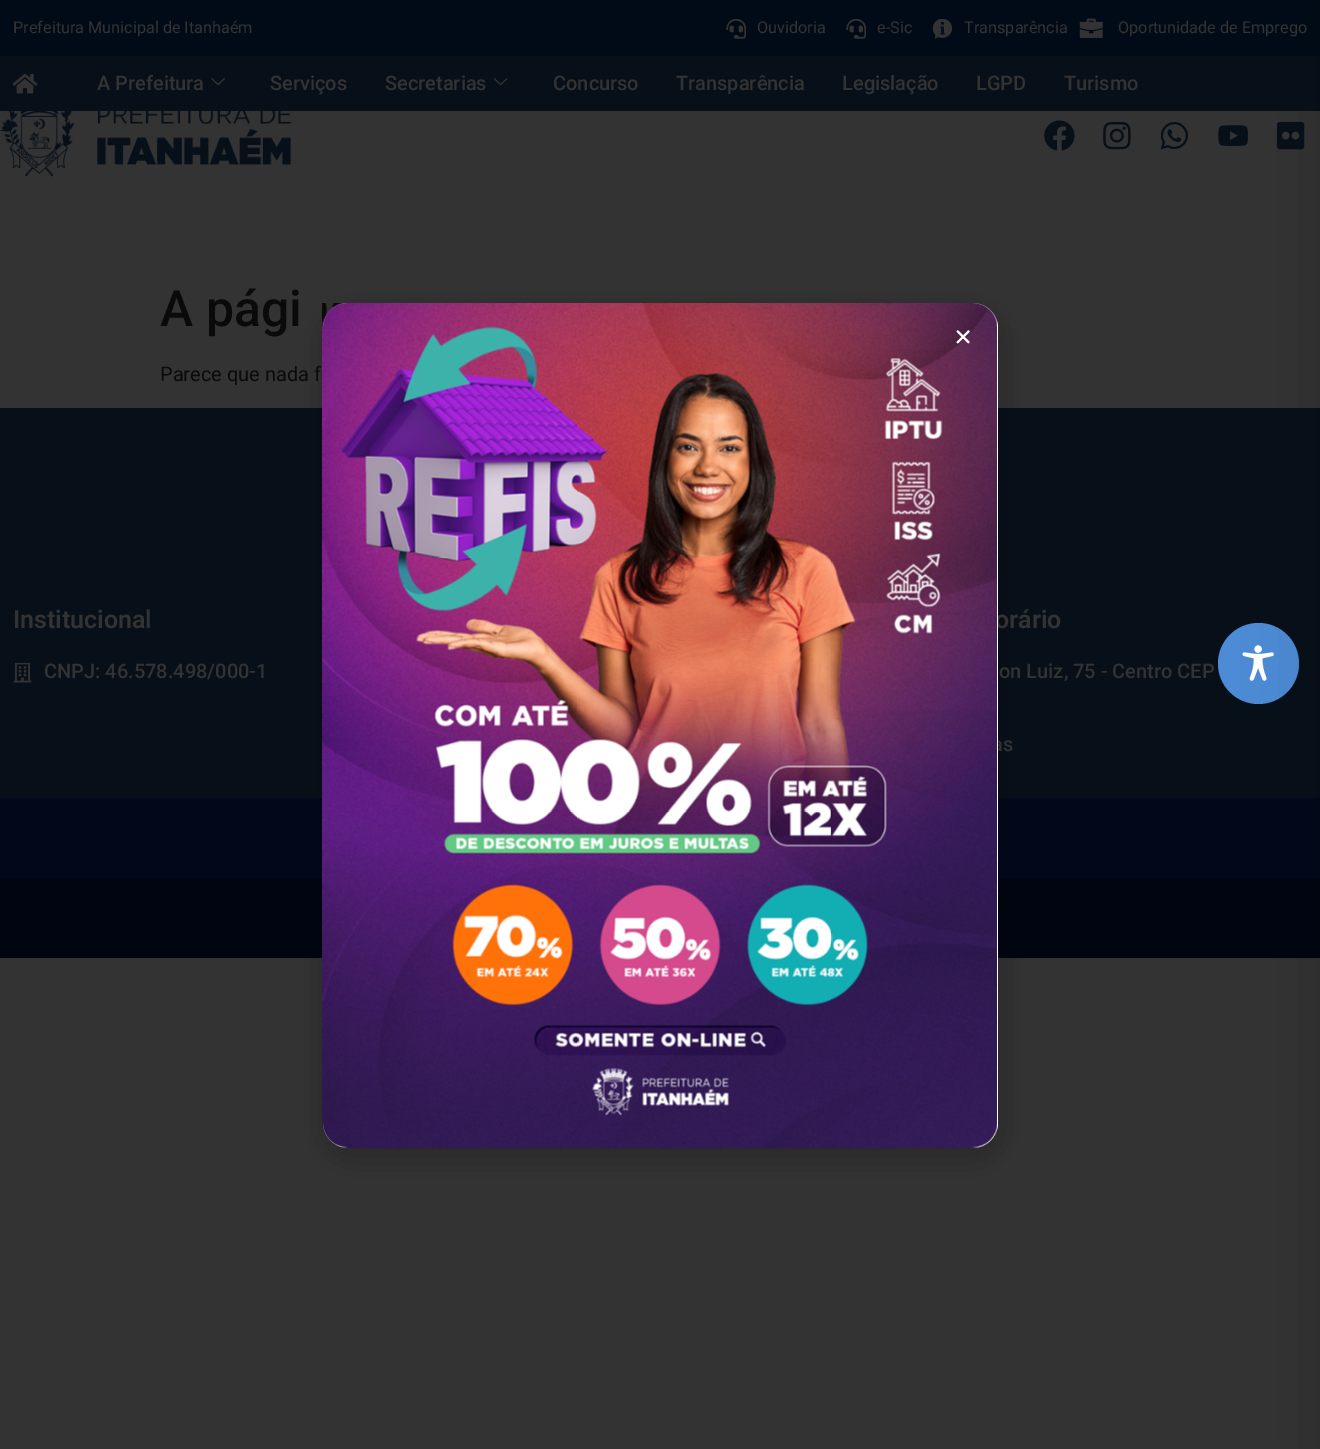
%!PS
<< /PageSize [1320 1449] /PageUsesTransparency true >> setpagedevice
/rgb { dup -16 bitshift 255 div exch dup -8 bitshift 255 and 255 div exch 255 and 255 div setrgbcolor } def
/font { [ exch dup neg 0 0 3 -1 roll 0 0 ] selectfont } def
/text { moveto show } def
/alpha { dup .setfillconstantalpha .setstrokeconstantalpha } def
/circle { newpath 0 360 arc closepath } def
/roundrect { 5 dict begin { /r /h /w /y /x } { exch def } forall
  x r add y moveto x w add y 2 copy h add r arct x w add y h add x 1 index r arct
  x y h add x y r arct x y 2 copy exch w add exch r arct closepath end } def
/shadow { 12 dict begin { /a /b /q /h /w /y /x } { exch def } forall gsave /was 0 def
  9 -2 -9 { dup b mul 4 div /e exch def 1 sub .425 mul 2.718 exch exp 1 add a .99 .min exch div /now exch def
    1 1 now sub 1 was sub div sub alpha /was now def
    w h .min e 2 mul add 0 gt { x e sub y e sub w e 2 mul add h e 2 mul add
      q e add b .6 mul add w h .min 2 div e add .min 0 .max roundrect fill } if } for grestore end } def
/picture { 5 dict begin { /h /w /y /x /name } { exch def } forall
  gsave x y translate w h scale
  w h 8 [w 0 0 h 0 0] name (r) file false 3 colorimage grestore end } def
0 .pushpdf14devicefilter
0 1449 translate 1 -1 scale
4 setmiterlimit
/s1 { /Roboto-Regular 16.25 font 16#333333 rgb } def
/s2 { /Roboto-Medium 20 font 16#333333 rgb } def
/s3 { /Roboto-Medium 50 font 16#0A0A0A rgb } def
/s4 { /Roboto-Regular 20 font 16#0A0A0A rgb } def
/s5 { /Roboto-SemiBold 25 font 16#333333 rgb } def
16#333333 rgb
0 0 1320 1449 rectfill
16#010B17 rgb
0 0 1320 56 rectfill
16#070F19 rgb
0 56 1320 55 rectfill
(pic11.raw) 1218 125 30 22 picture
(pic12.raw) 1276 121 29 29 picture
0 408 1320 390 rectfill
16#02081A rgb
0 798 1320 81 rectfill
16#010512 rgb
0 879 1320 79 rectfill
16#4D8BD6 rgb
1258.5 663.5 40.5 circle fill
(pic16.raw) 1242 645 32 36 picture
16#000000 rgb
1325 13 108 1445 0 37.5 0.2 shadow
s1
(Prefeitura Municipal de Itanhaém) 13 33 text
(pic1.raw) 726 19 20 20 picture
(Ouvidoria) 757 33 text
(pic1.raw) 846 19 20 20 picture
(e-Sic) 877 33 text
(pic2.raw) 933 19 20 20 picture
(Transparência) 964 33 text
(pic3.raw) 1079 18 24 20 picture
(Oportunidade de Emprego) 1118 33 text
(pic4.raw) 13 74 25 20 picture
s2
(A Prefeitura) 97 90 text
(pic5.raw) 211 78 14 8 picture
(Serviços) 270 90 text
(Secretarias) 385 90 text
(pic6.raw) 493 78 15 8 picture
(Concurso) 553 90 text
(Transparência) 676 90 text
(Legislação) 842 90 text
(LGPD) 976 90 text
(Turismo) 1064 90 text
(pic7.raw) 0 111 292 66 picture
(pic8.raw) 1044 120 31 31 picture
(pic9.raw) 1103 121 28 29 picture
(pic10.raw) 1160 122 28 28 picture
s3
(A pági) 160 326 text
s4
(Parece que nada f) 160 381 text
16#000000 rgb
321 309 683 852 29 14.5 0.2 shadow
s5
(orário) 995 628 text
s2
(as) 992 751 text
16#FFFFFF rgb
323 303 675 845 25 roundrect fill
(pic13.raw) 322 303 675 845 picture
(pic14.raw) 956 330 14 14 picture
s5
(Institucional) 13 628 text
(pic15.raw) 13 663 19 20 picture
s2
(CNPJ: 46.578.498/000-1) 44 678 text
(on Luiz, 75 - Centro CEP) 999 678 text
.poppdf14devicefilter showpage
